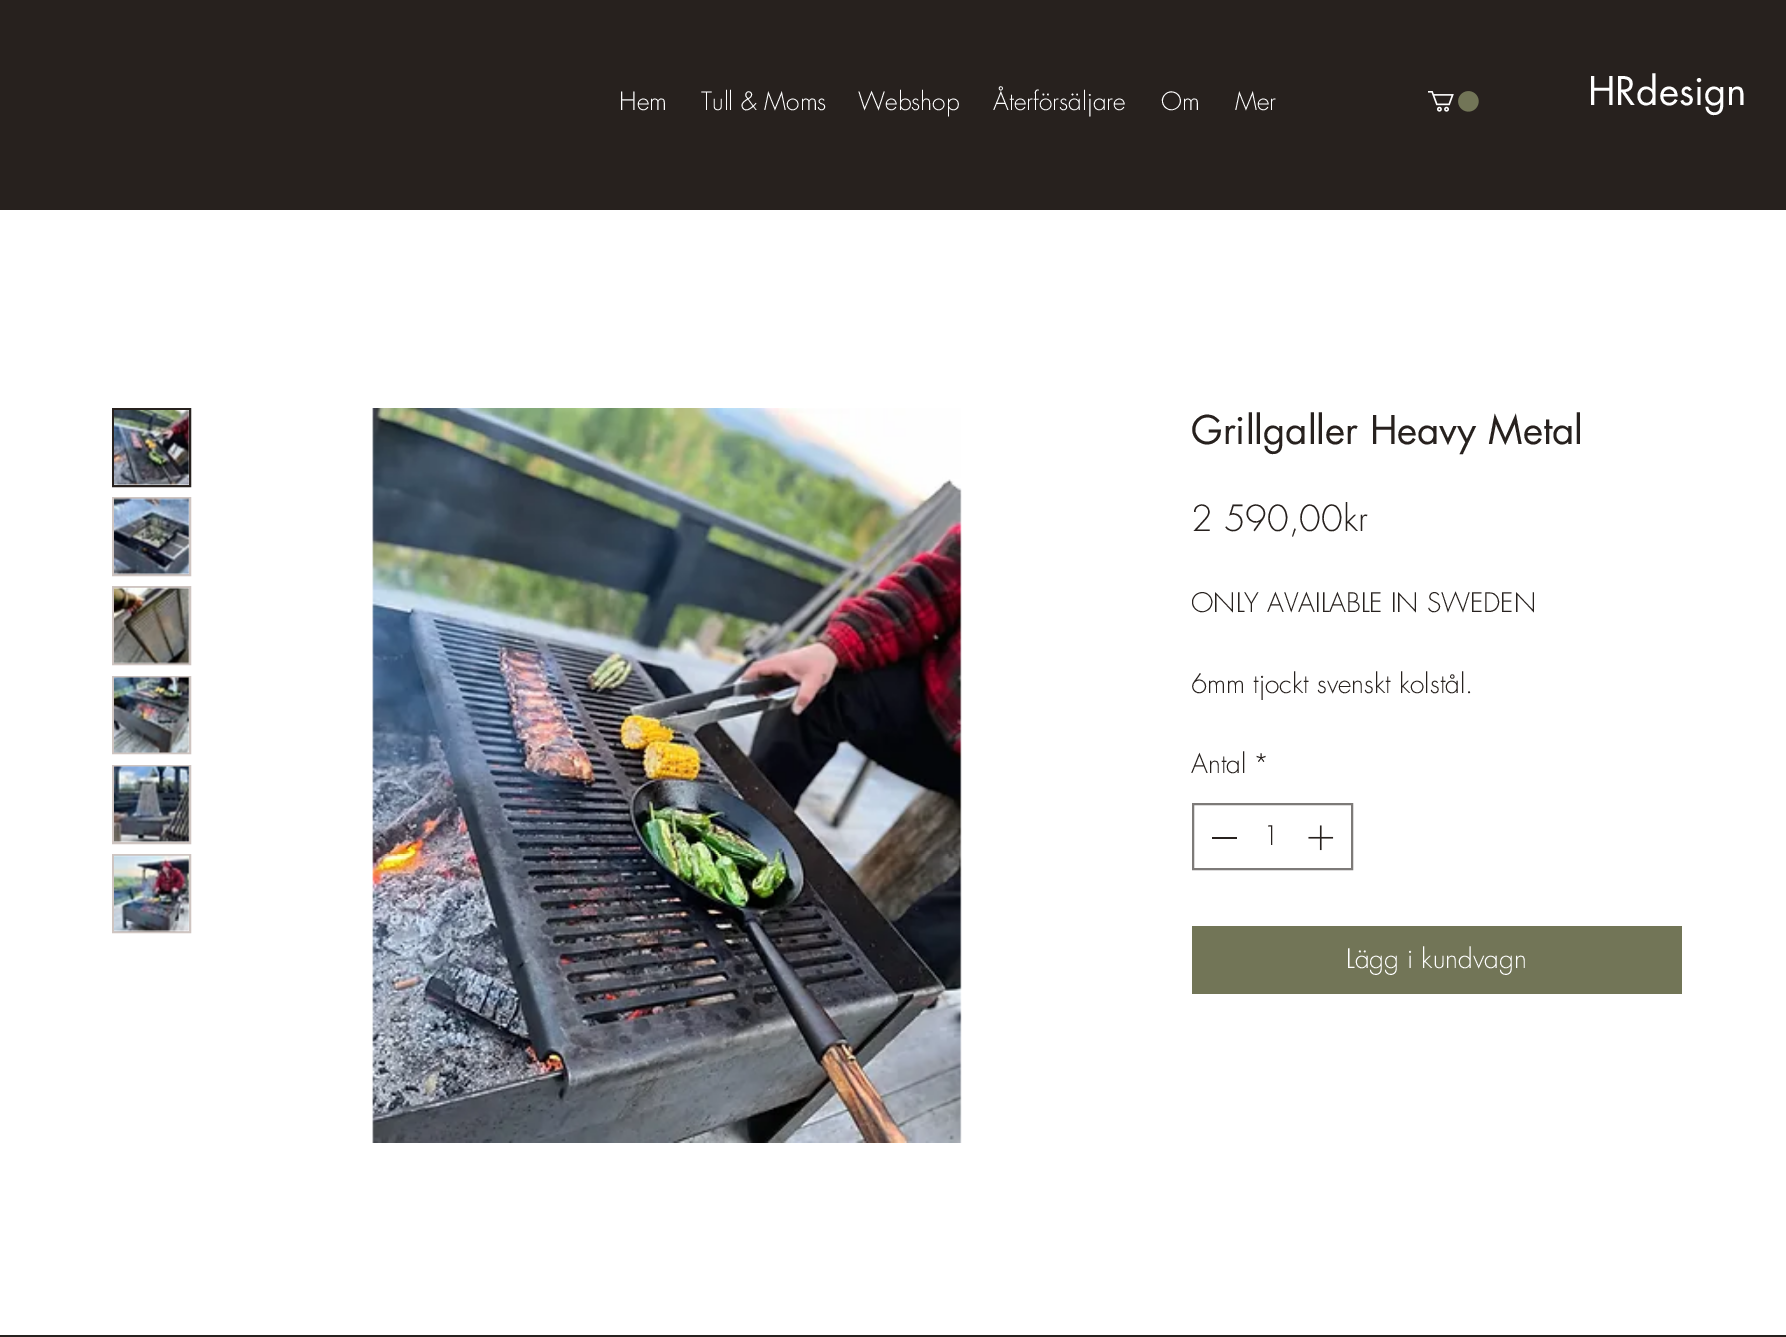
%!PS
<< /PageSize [1786 1337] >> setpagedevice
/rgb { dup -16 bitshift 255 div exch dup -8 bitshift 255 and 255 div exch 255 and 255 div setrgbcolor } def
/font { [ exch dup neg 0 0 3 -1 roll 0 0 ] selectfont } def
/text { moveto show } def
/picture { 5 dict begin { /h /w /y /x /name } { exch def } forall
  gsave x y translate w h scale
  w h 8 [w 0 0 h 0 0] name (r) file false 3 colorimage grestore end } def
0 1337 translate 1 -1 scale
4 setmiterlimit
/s1 { /futura-Light 24.5 font 16#FFFFFF rgb } def
/s2 { /futura-Regular 38.5 font 16#FFFFFF rgb } def
/s3 { /futura-Regular 38.5 font 16#27211E rgb } def
/s4 { /futura-Light 35 font 16#27211E rgb } def
/s5 { /futura-Light 26.25 font 16#27211E rgb } def
/s6 { /futura-Light 26.25 font 16#FFFFFF rgb } def
16#FFFFFF rgb
0 0 1786 1337 rectfill
16#27211E rgb
0 0 1786 210 rectfill
s1
(Hem) 619 110 text
(Tull & Moms) 701 110 text
(Webshop) 858 110 text
(Återförsäljare) 993 110 text
(Om) 1161 110 text
(Mer) 1235 110 text
(pic1.raw) 1428 91 51 21 picture
s2
(HRdesign) 1588 105 text
16#27211E rgb
2 setlinewidth
113 409 77 77 rectstroke
(pic2.raw) 114 410 76 76 picture
16#CFC5C1 rgb
113 498 77 77 rectstroke
(pic3.raw) 114 498 76 77 picture
113 587 77 77 rectstroke
(pic4.raw) 114 587 76 77 picture
113 677 77 76 rectstroke
(pic5.raw) 114 676 76 77 picture
113 766 77 77 rectstroke
(pic6.raw) 114 766 76 77 picture
113 855 77 77 rectstroke
(pic7.raw) 114 855 76 77 picture
(pic8.raw) 372 408 590 735 picture
s3
(Grillgaller Heavy Metal) 1191 444 text
s4
(2 590,00kr) 1191 531 text
gsave
1192 585 490 120 rectclip
s5
(ONLY AVAILABLE IN SWEDEN) 1191 612 text
grestore
s5
(6mm tjockt svenskt kolstål.) 1191 693 text
(Antal) 1191 773 text
(*) 1253 773 text
16#7D7A78 rgb
1193 804 159 65 rectstroke
16#27211E rgb
1212 837 25 2 rectfill
(1) 1263 845 text
(pic9.raw) 1308 825 26 26 picture
16#727557 rgb
1192 926 490 68 rectfill
s6
(Lägg i kundvagn) 1346 968 text
16#27211E rgb
0 1335 1786 2 rectfill
showpage
